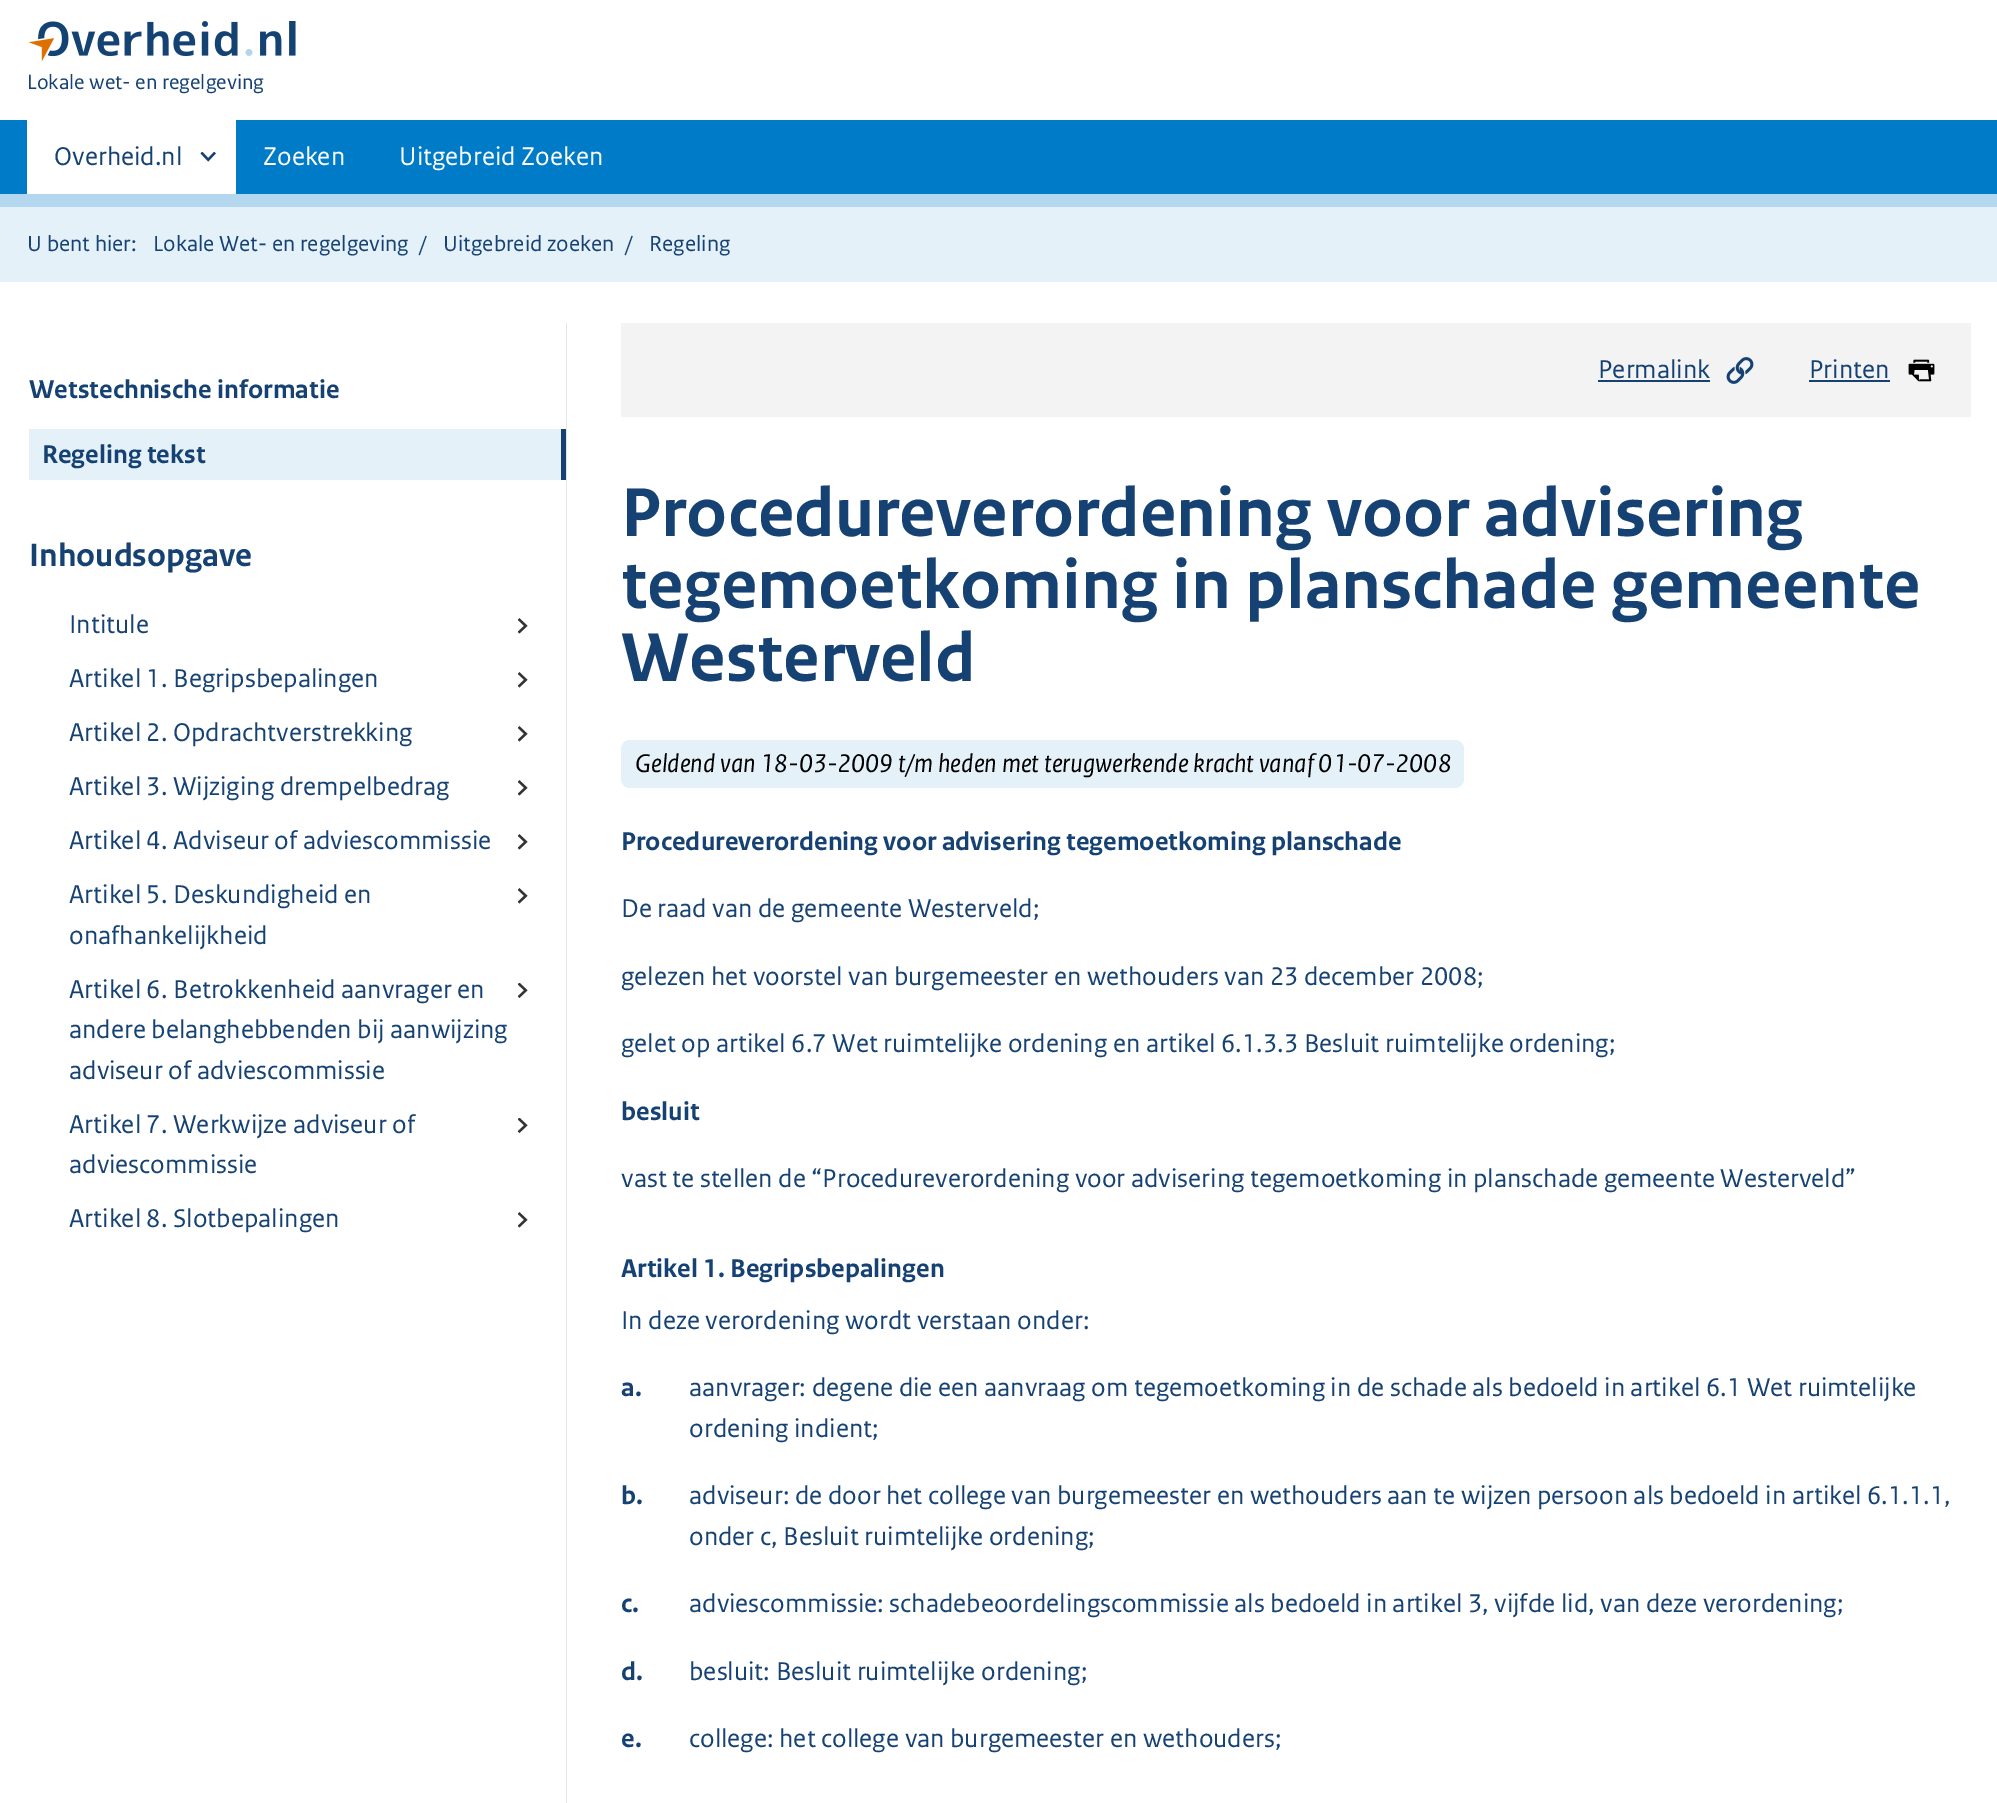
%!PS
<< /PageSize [1997 1803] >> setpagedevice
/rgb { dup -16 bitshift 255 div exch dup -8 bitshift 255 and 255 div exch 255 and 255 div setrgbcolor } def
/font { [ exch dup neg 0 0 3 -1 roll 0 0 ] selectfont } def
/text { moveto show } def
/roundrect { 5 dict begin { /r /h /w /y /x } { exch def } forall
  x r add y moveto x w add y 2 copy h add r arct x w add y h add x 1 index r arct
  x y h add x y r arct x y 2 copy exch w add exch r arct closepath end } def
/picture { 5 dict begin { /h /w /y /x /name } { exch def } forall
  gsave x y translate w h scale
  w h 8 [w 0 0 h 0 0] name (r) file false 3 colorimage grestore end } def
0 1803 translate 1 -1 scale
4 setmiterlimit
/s1 { /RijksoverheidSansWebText-Regular 21.6 font 16#154273 rgb } def
/s2 { /RijksoverheidSansWebText-Regular 27 font 16#154273 rgb } def
/s3 { /RijksoverheidSansWebText-Regular 27 font 16#FFFFFF rgb } def
/s4 { /RijksoverheidSansWebText-Regular 23 font 16#154273 rgb } def
/s5 { /RijksoverheidSansWebText-Bold 27 font 16#154273 rgb } def
/s6 { /RijksoverheidSansWebText-Bold 33.75 font 16#154273 rgb } def
/s7 { /RijksoverheidSansWebText-Bold 72.6 font 16#154273 rgb } def
/s8 { /RijksoverheidSansWebText-Italic 27 font 16#000000 rgb } def
16#FFFFFF rgb
0 0 1997 1803 rectfill
16#B2D7EE rgb
0 194 1997 13 rectfill
(pic1.raw) 28 21 268 41 picture
s1
(Lokale wet- en regelgeving) 27 89 text
16#007BC7 rgb
0 120 1997 74 rectfill
16#FFFFFF rgb
27 120 209 74 rectfill
(pic2.raw) 200 152 16 10 picture
s2
(Overheid.nl) 54 165 text
s3
(Zoeken) 263 165 text
(Uitgebreid Zoeken) 399 165 text
16#E5F1F9 rgb
0 207 1997 75 rectfill
s4
(U bent hier:) 27 251 text
(Lokale Wet- en regelgeving) 153 251 text
(/) 419 251 text
(Uitgebreid zoeken) 443 251 text
(/) 625 251 text
(Regeling) 649 251 text
16#E6E6E6 rgb
567 322 moveto 567 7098 lineto 566 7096 lineto 566 324 lineto closepath fill
s5
(Wetstechnische informatie) 29 398 text
561 429 5 51 rectfill
16#E5F1F9 rgb
29 429 532 51 rectfill
s5
(Regeling tekst) 42 463 text
s6
(Inhoudsopgave) 29 566 text
(pic3.raw) 518 618 10 16 picture
s2
(Intitule) 69 633 text
(pic3.raw) 518 672 10 16 picture
(Artikel 1. Begripsbepalingen) 69 687 text
(pic3.raw) 518 726 10 16 picture
(Artikel 2. Opdrachtverstrekking) 69 741 text
(pic3.raw) 518 780 10 16 picture
(Artikel 3. Wijziging drempelbedrag) 69 795 text
(pic3.raw) 518 834 10 16 picture
(Artikel 4. Adviseur of adviescommissie) 69 849 text
(pic3.raw) 518 888 10 16 picture
(Artikel 5. Deskundigheid en) 69 903 text
(onafhankelijkheid) 69 944 text
(pic4.raw) 518 983 10 15 picture
(Artikel 6. Betrokkenheid aanvrager en) 69 998 text
(andere belanghebbenden bij aanwijzing) 69 1038 text
(adviseur of adviescommissie) 69 1079 text
(pic4.raw) 518 1118 10 15 picture
(Artikel 7. Werkwijze adviseur of) 69 1133 text
(adviescommissie) 69 1173 text
(pic3.raw) 518 1212 10 16 picture
(Artikel 8. Slotbepalingen) 69 1227 text
16#F3F3F3 rgb
621 323 1350 94 rectfill
s2
(Permalink) 1598 378 text
1598 380 112 2 rectfill
(pic5.raw) 1726 357 28 27 picture
(Printen) 1809 378 text
1809 380 81 2 rectfill
(pic6.raw) 1908 359 27 23 picture
s7
(Procedureverordening voor advisering) 621 536 text
(tegemoetkoming in planschade gemeente) 621 608 text
(Westerveld) 621 681 text
16#E5F1F9 rgb
621 740 843 48 9 roundrect fill
s8
(Geldend van 18-03-2009 t/m heden met terugwerkende kracht vanaf 01-07-2008) 635 772 text
s5
(Procedureverordening voor advisering tegemoetkoming planschade) 621 850 text
s2
(De raad van de gemeente Westerveld;) 621 917 text
(gelezen het voorstel van burgemeester en wethouders van 23 december 2008;) 621 985 text
(gelet op artikel 6.7 Wet ruimtelijke ordening en artikel 6.1.3.3 Besluit ruimtelijke ordening;) 621 1052 text
s5
(besluit) 621 1120 text
s2
(vast te stellen de “Procedureverordening voor advisering tegemoetkoming in planschade gemeente Westerveld”) 621 1187 text
s5
(Artikel 1. Begripsbepalingen) 621 1277 text
s2
(In deze verordening wordt verstaan onder:) 621 1329 text
s5
(a.) 621 1396 text
s2
(aanvrager: degene die een aanvraag om tegemoetkoming in de schade als bedoeld in artikel 6.1 Wet ruimtelijke) 689 1396 text
(ordening indient;) 689 1437 text
s5
(b.) 621 1504 text
s2
(adviseur: de door het college van burgemeester en wethouders aan te wijzen persoon als bedoeld in artikel 6.1.1.1,) 689 1504 text
(onder c, Besluit ruimtelijke ordening;) 689 1545 text
s5
(c.) 621 1612 text
s2
(adviescommissie: schadebeoordelingscommissie als bedoeld in artikel 3, vijfde lid, van deze verordening;) 689 1612 text
s5
(d.) 621 1680 text
s2
(besluit: Besluit ruimtelijke ordening;) 689 1680 text
s5
(e.) 621 1747 text
s2
(college: het college van burgemeester en wethouders;) 689 1747 text
showpage
